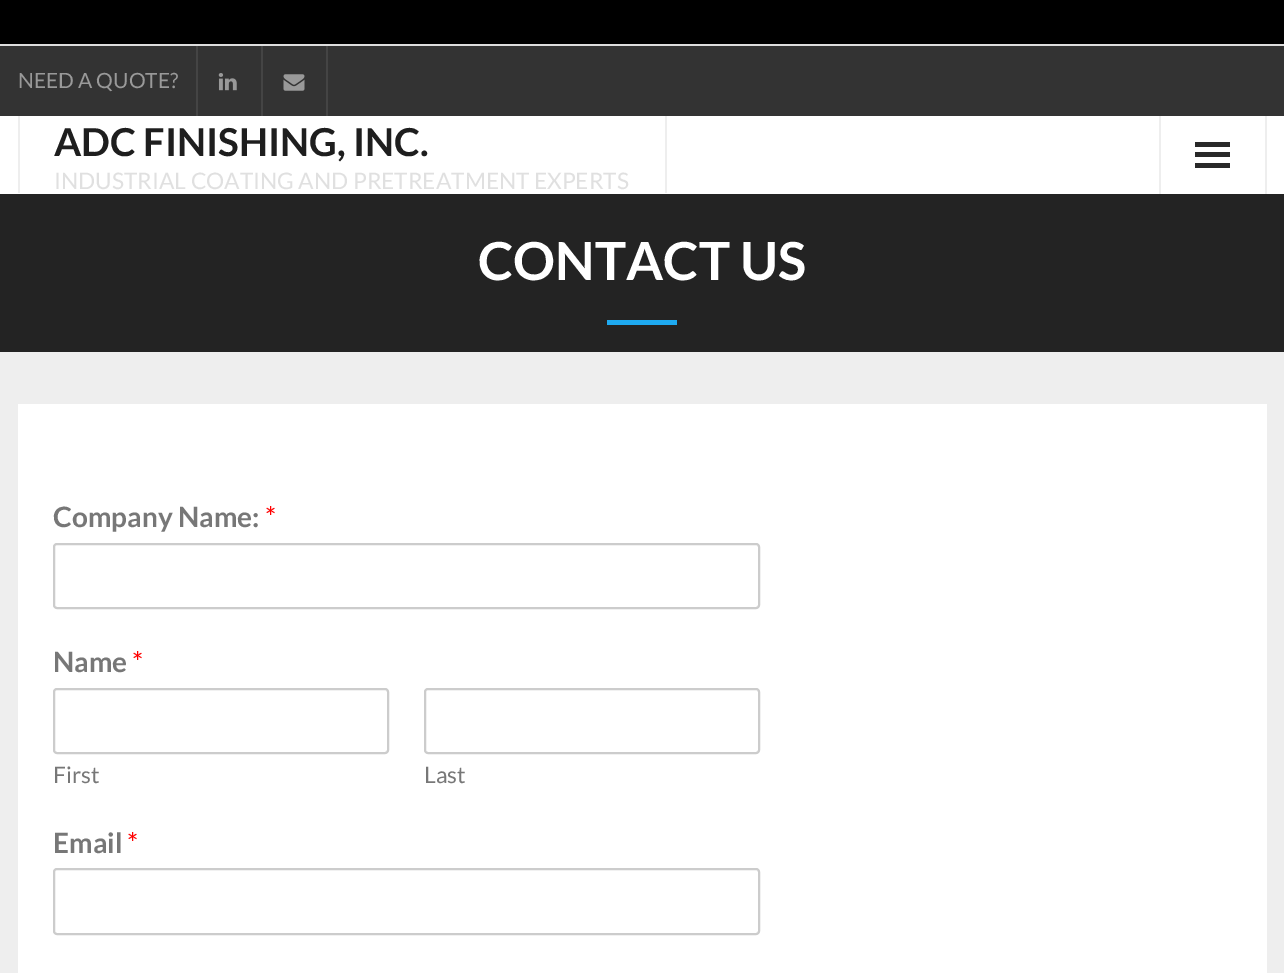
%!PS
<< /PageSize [1284 973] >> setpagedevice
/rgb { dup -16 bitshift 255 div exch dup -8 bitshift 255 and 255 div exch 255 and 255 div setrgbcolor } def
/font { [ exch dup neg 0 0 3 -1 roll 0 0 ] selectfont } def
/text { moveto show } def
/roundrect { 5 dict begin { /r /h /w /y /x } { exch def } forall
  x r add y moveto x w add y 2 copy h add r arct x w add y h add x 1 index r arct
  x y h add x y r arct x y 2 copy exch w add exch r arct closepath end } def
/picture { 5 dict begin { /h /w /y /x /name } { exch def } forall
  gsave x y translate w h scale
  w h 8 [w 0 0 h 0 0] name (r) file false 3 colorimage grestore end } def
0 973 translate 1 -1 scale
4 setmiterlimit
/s1 { /Lato-Regular 21 font 16#999999 rgb } def
/s2 { /Lato-Bold 38.5 font 16#1E1E1E rgb } def
/s3 { /Lato-Regular 22.75 font 16#E0E0E0 rgb } def
/s4 { /Lato-Bold 52.5 font 16#FFFFFF rgb } def
/s5 { /Lato-Bold 28 font 16#777777 rgb } def
/s6 { /Lato-Regular 28 font 16#FF0000 rgb } def
/s7 { /Lato-Regular 22.75 font 16#777777 rgb } def
16#000000 rgb
0 0 1284 973 rectfill
16#EEEEEE rgb
0 352 1284 621 rectfill
16#DDDDDD rgb
0 44 1284 2 rectfill
16#333333 rgb
0 46 1284 70 rectfill
s1
(NEED A QUOTE?) 18 88 text
16#444444 rgb
196 46 2 70 rectfill
(pic1.raw) 218 73 19 18 picture
326 46 2 70 rectfill
261 46 2 70 rectfill
(pic2.raw) 283 74 22 17 picture
16#FFFFFF rgb
0 116 1284 78 rectfill
16#EEEEEE rgb
665 116 2 77 rectfill
18 116 2 77 rectfill
s2
(ADC FINISHING, INC.) 54 156 text
s3
(INDUSTRIAL COATING AND PRETREATMENT EXPERTS) 54 189 text
16#EEEEEE rgb
1265 116 2 78 rectfill
1159 116 2 78 rectfill
16#292929 rgb
1195 142 35 5 rectfill
1195 152 35 5 rectfill
1195 163 35 5 rectfill
16#232323 rgb
0 194 1284 158 rectfill
s4
(CONTACT US) 478 280 text
16#1EAAF1 rgb
607 320 70 5 rectfill
16#FFFFFF rgb
18 404 1249 569 rectfill
s5
(Company Name:) 53 527 text
s6
(*) 265 527 text
16#CCCCCC rgb
2 setlinewidth
54 544 705 64 3 roundrect stroke
s5
(Name) 53 672 text
s6
(*) 132 672 text
16#CCCCCC rgb
54 689 334 64 3 roundrect stroke
s7
(First) 53 783 text
16#CCCCCC rgb
425 689 334 64 3 roundrect stroke
s7
(Last) 424 783 text
s5
(Email) 53 853 text
s6
(*) 127 853 text
16#CCCCCC rgb
54 869 705 65 3 roundrect stroke
showpage
